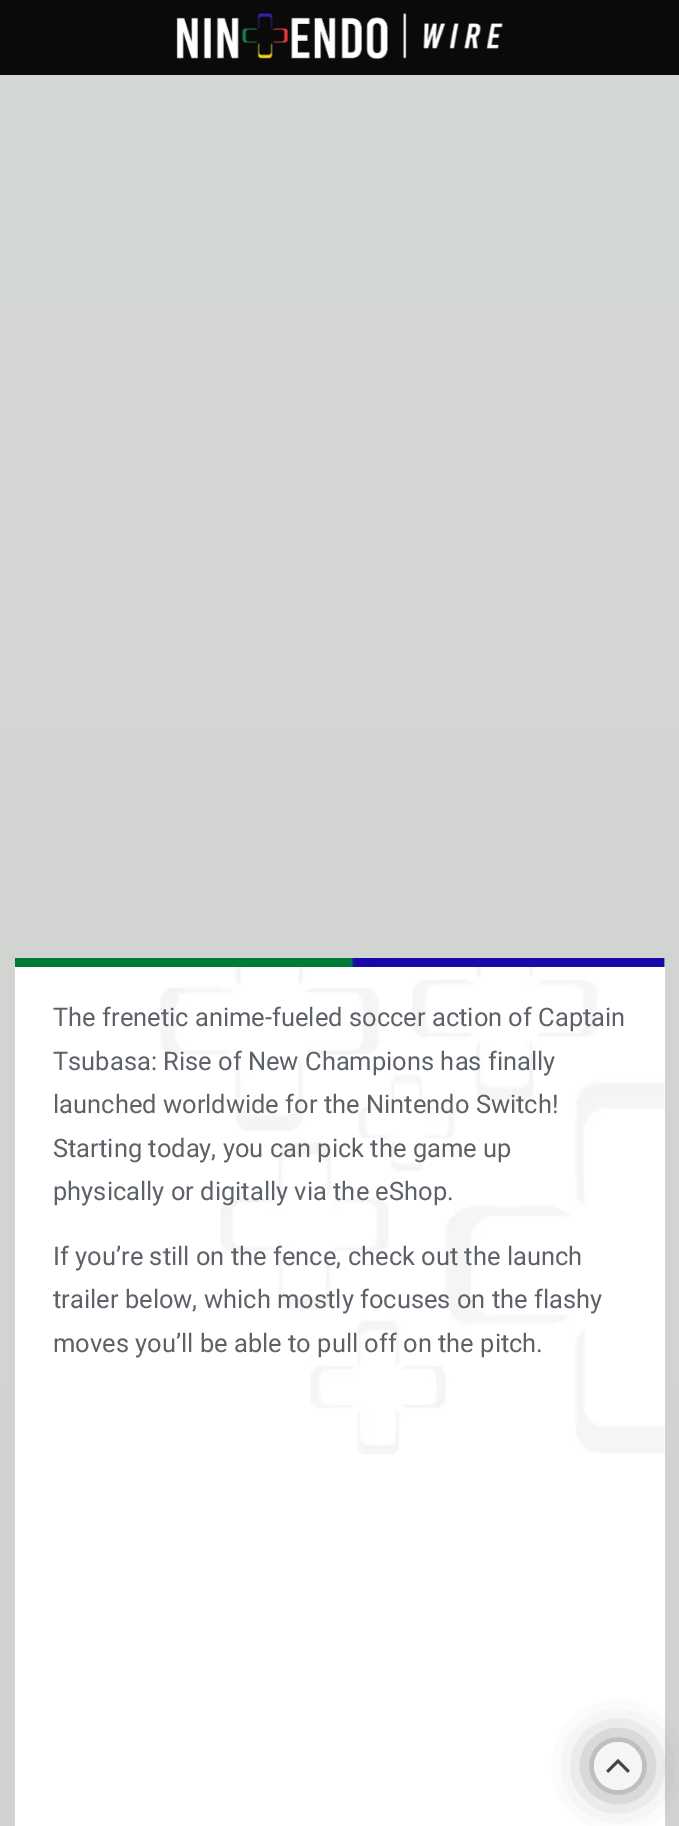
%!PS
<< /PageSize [679 1826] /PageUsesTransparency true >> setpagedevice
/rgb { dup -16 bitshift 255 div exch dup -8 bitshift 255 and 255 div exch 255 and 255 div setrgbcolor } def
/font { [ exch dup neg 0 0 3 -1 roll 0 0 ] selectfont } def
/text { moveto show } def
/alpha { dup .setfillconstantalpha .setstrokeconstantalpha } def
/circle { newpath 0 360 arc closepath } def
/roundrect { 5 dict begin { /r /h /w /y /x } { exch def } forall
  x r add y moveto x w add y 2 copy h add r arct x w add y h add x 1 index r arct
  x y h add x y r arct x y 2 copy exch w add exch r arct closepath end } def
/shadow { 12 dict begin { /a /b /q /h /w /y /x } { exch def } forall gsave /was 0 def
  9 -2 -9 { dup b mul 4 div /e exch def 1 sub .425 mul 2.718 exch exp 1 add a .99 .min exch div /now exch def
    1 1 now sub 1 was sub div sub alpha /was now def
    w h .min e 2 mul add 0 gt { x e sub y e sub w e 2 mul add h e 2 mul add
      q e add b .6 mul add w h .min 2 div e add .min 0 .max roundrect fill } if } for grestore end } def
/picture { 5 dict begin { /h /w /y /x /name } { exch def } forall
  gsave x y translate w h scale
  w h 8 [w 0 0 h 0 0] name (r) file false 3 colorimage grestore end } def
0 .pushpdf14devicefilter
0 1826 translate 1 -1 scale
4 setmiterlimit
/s1 { /Roboto-Regular 25.5 font 16#5D6268 rgb } def
16#FFFFFF rgb
0 0 679 1826 rectfill
gsave 0 75 moveto 679 75 lineto 679 1826 lineto 0 1826 lineto closepath clip newpath
<< /ShadingType 2 /ColorSpace /DeviceRGB /Coords [340 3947 340 -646] /Extend [true true] /Function << /FunctionType 2 /Domain [0 1] /C0 [0.796 0.796 0.796] /C1 [0.843 0.859 0.847] /N 1 >> >> shfill grestore
16#0A0A0A rgb
0 0 679 75 rectfill
(pic1.raw) 176 13 327 46 picture
16#FFFFFF rgb
15 959 650 867 rectfill
(pic2.raw) 160 958 505 497 picture
(pic3.raw) 15 958 650 9 picture
s1
(The frenetic anime-fueled soccer action of Captain) 53 1026 text
(Tsubasa: Rise of New Champions has finally) 53 1070 text
(launched worldwide for the Nintendo Switch!) 53 1113 text
(Starting today, you can pick the game up) 53 1157 text
(physically or digitally via the eShop.) 53 1200 text
(If you’re still on the fence, check out the launch) 53 1265 text
(trailer below, which mostly focuses on the flashy) 53 1308 text
(moves you’ll be able to pull off on the pitch.) 53 1352 text
16#000000 rgb
594 1742 48 48 24 19 0.5 shadow
16#F5F5F5 rgb
618 1766 24 circle fill
(pic4.raw) 606 1759 24 14 picture
.poppdf14devicefilter showpage
